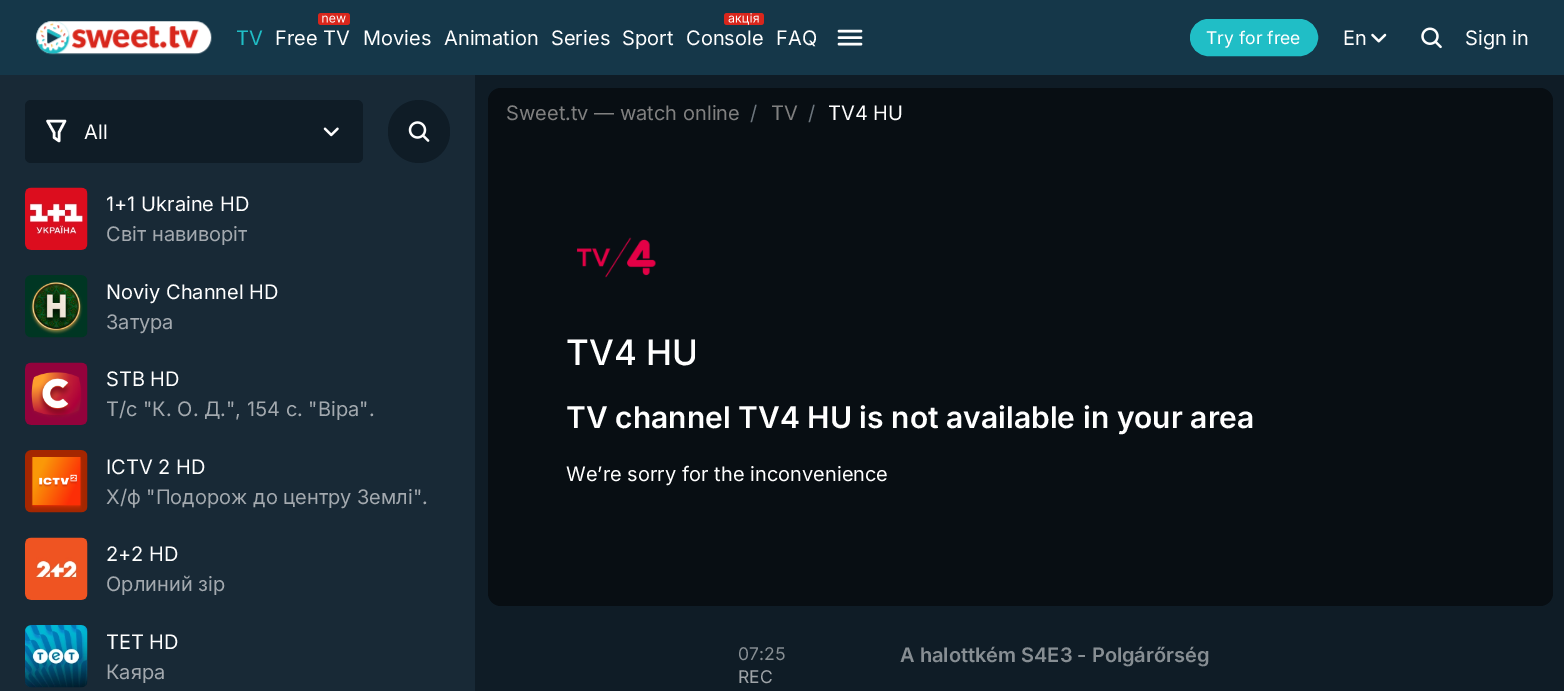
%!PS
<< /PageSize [1564 691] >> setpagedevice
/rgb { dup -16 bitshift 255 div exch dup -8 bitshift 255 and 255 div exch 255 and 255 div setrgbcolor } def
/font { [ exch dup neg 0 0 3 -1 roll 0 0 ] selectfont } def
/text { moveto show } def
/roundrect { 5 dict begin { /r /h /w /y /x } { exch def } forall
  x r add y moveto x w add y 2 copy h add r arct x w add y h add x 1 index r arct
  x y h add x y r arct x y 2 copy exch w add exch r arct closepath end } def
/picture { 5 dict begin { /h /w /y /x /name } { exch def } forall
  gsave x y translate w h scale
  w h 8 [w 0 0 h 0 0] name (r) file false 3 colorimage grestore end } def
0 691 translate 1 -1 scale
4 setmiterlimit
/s1 { /Inter-Regular 20 font 16#20BEC6 rgb } def
/s2 { /Inter-Regular 20 font 16#FFFFFF rgb } def
/s3 { /Inter-Regular 17.5 font 16#FFFFFF rgb } def
/s4 { /Inter-Regular 20 font 16#A3A9AF rgb } def
/s5 { /Inter-Regular 20 font 16#808080 rgb } def
/s6 { /Inter-Regular 20 font 16#6C757D rgb } def
/s7 { /Inter-Medium 35 font 16#FFFFFF rgb } def
/s8 { /Inter-SemiBold 30 font 16#FFFFFF rgb } def
/s9 { /Inter-Regular 17.5 font 16#878E93 rgb } def
/s10 { /Inter-Regular 17.5 font 16#9FA4A8 rgb } def
/s11 { /Inter-SemiBold 20 font 16#878E93 rgb } def
16#0F1C26 rgb
0 0 1564 691 rectfill
16#153749 rgb
0 0 1564 75 rectfill
(pic1.raw) 36 21 176 34 picture
s1
(TV) 236 45 text
(pic2.raw) 318 13 32 12 picture
s2
(Free TV) 275 45 text
(Movies) 363 45 text
(Animation) 444 45 text
(Series) 551 45 text
(Sport) 622 45 text
(pic3.raw) 724 13 40 12 picture
(Console) 686 45 text
(FAQ) 776 45 text
2.5 setlinewidth
1 setlinecap
839 31 moveto 861 31 lineto 839 37.5 moveto 861 37.5 lineto 839 44 moveto 861 44 lineto stroke
16#20BEC6 rgb
1190.5 19.5 127 36 18 roundrect gsave fill grestore
1 setlinewidth
0 setlinecap
stroke
s3
(Try for free) 1206 44 text
s2
(En) 1343 45 text
(pic4.raw) 1371 33 16 10 picture
(pic5.raw) 1421 27 21 22 picture
(Sign in) 1465 45 text
16#182936 rgb
0 75 475 616 rectfill
16#0F1C26 rgb
25 100 338 63 6 roundrect fill
16#FFFFFF rgb
2.5 setlinewidth
1 setlinejoin
65 121 moveto 47.5 121 lineto 54 132.5 lineto 54 137.5 lineto 59 141 lineto 59 132.5 lineto closepath stroke
(All) 84 139 text
(pic6.raw) 323 127 16 10 picture
16#0F1C26 rgb
388 100 62 63 31 roundrect fill
(pic7.raw) 408 121 22 21 picture
(pic8.raw) 25 187 63 63 picture
s2
(1+1 Ukraine HD) 106 211 text
s4
(Світ навиворіт) 106 241 text
(pic9.raw) 25 275 63 63 picture
s2
(Noviy Channel HD) 106 299 text
s4
(Затура) 106 329 text
(pic10.raw) 25 362 63 63 picture
s2
(STB HD) 106 386 text
s4
(Т/с "К. О. Д.", 154 с. "Віра".) 106 416 text
(pic11.raw) 25 450 63 63 picture
s2
(ICTV 2 HD) 106 474 text
s4
(Х/ф "Подорож до центру Землі".) 106 504 text
(pic12.raw) 25 537 63 63 picture
s2
(2+2 HD) 106 561 text
s4
(Орлиний зір) 106 591 text
(pic13.raw) 25 625 63 63 picture
s2
(ТЕТ HD) 106 649 text
s4
(Каяра) 106 679 text
16#080E13 rgb
488 88 1065 518 13 roundrect fill
s5
(Sweet.tv — watch online) 506 120 text
s6
(/) 750 120 text
s5
(TV) 771 120 text
s6
(/) 808 120 text
s2
(TV4 HU) 828 120 text
(pic14.raw) 576 237 80 41 picture
s7
(TV4 HU) 566 365 text
s8
(TV channel TV4 HU is not available in your area) 566 428 text
s2
(We’re sorry for the inconvenience) 566 481 text
s9
(07:25) 738 660 text
s10
(REC) 738 683 text
s11
(A halottkém S4E3 - Polgárőrség) 900 662 text
showpage
